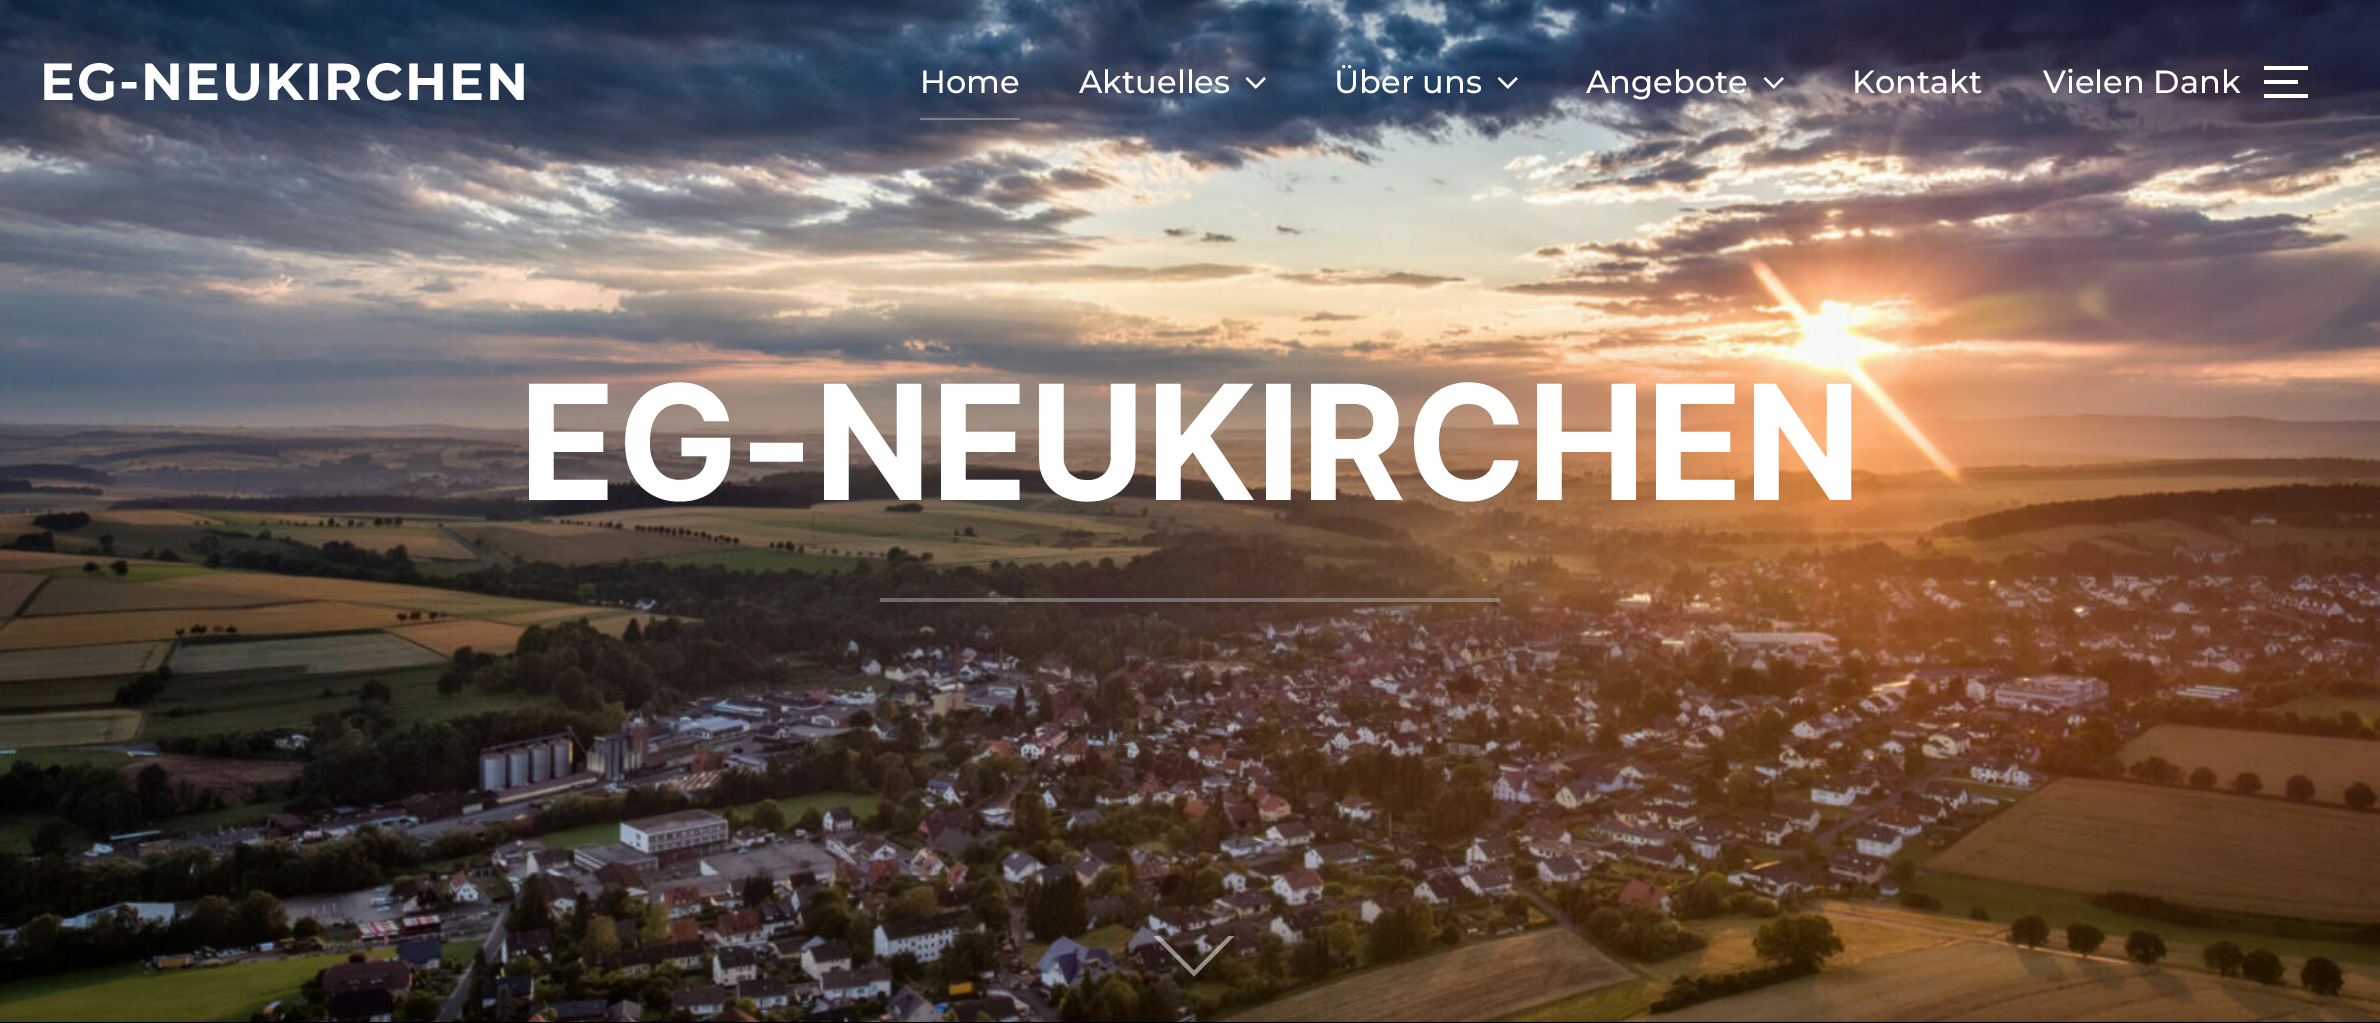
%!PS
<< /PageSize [2380 1023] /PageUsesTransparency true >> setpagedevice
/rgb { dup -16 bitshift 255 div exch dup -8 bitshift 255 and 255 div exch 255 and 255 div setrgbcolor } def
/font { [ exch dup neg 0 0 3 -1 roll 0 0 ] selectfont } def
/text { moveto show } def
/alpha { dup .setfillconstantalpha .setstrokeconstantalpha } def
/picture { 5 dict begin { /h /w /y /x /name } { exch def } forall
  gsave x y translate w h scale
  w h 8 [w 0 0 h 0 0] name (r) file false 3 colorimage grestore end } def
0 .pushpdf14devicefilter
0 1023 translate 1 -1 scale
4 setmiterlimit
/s1 { /Montserrat-Medium 32 font 16#FFFFFF rgb } def
/s2 { /Inter-Bold 160 font 16#FFFFFF rgb } def
16#000000 rgb
0 0 2380 1023 rectfill
(pic4.raw) 0 0 2380 1022 picture
/Montserrat-Bold 52 font
16#FFFFFF rgb
40 100 moveto 2 0 (EG-NEUKIRCHEN) ashow
0.3 alpha
920 118 100 2 rectfill
1 alpha
s1
(Home) 920 93 text
(Aktuelles) 1079 93 text
(pic1.raw) 1245 77 21 12 picture
(Über uns) 1334 93 text
(pic2.raw) 1497 77 21 12 picture
(Angebote) 1586 93 text
(pic3.raw) 1763 77 21 12 picture
(Kontakt) 1852 93 text
(Vielen Dank) 2043 93 text
2264 66 44 4 rectfill
2264 80 34 4 rectfill
2264 94 44 4 rectfill
s2
(EG-NEUKIRCHEN) 519 500 text
0.4 alpha
16#C9C9C9 rgb
880 598 620 4 rectfill
gsave
1134 936 112 48 rectclip
0.5 alpha
16#FFFFFF rgb
4 setlinewidth
1194 894.5 moveto 1233.5 934 lineto 1194 973.5 lineto 1154.5 934 lineto closepath stroke
grestore
.poppdf14devicefilter showpage
